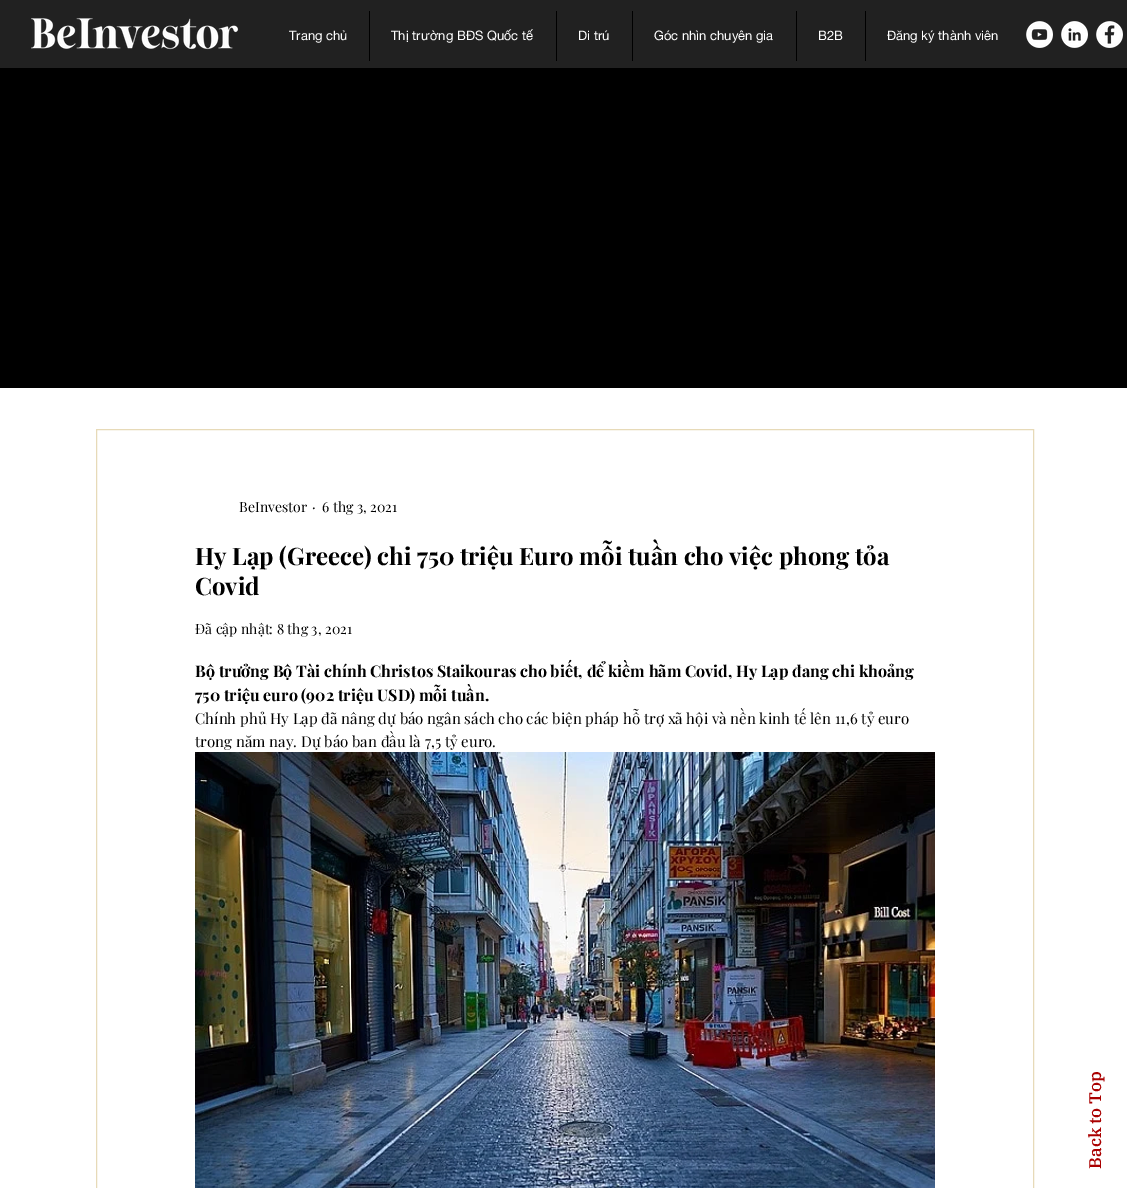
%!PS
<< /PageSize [1127 1188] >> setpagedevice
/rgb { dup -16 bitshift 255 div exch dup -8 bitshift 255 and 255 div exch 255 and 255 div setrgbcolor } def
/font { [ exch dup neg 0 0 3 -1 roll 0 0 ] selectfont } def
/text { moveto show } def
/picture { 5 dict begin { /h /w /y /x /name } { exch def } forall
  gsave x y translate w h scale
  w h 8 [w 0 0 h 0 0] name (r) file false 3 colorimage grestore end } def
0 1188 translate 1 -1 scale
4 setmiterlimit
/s1 { /HelveticaNeue-Regular 13 font 16#FFFFFF rgb } def
/s2 { /PlayfairDisplay-Regular 14 font 16#000000 rgb } def
/s3 { /PlayfairDisplay-Bold 24 font 16#000000 rgb } def
/s4 { /PlayfairDisplay-Bold 16 font 16#000000 rgb } def
/s5 { /PlayfairDisplay-Regular 15 font 16#000000 rgb } def
16#FFFFFF rgb
0 0 1127 1188 rectfill
16#212121 rgb
0 0 1127 68 rectfill
(pic1.raw) 31 18 208 32 picture
s1
(Trang chủ) 289 40 text
16#000000 rgb
369 11 1 50 rectfill
s1
(Thị trường BĐS Quốc tế) 391 40 text
16#000000 rgb
556 11 1 50 rectfill
s1
(Di trú) 578 40 text
16#000000 rgb
632 11 1 50 rectfill
s1
(Góc nhìn chuyên gia) 654 40 text
16#000000 rgb
796 11 1 50 rectfill
s1
(B2B) 818 40 text
16#000000 rgb
865 11 1 50 rectfill
s1
(Đăng ký thành viên) 887 40 text
(pic2.raw) 1026 21 27 27 picture
(pic3.raw) 1061 21 27 27 picture
(pic4.raw) 1096 21 27 27 picture
16#000000 rgb
0 68 1127 320 rectfill
16#E7DAB8 rgb
96.5 429.5 937 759 rectstroke
s2
(BeInvestor) 239 512 text
(·) 312 512 text
(6 thg 3, 2021) 322 512 text
s3
(Hy Lạp \(Greece\) chi 750 triệu Euro mỗi tuần cho việc phong tỏa) 195 565 text
(Covid) 195 595 text
s2
(Đã cập nhật: 8 thg 3, 2021) 195 634 text
s4
(Bộ trưởng Bộ Tài chính Christos Staikouras cho biết, để kiềm hãm Covid, Hy Lạp đang chi khoảng) 195 677 text
(750 triệu euro \(902 triệu USD\) mỗi tuần.) 195 701 text
s5
(Chính phủ Hy Lạp đã nâng dự báo ngân sách cho các biện pháp hỗ trợ xã hội và nền kinh tế lên 11,6 tỷ euro) 195 724 text
(trong năm nay. Dự báo ban đầu là 7,5 tỷ euro.) 195 747 text
(pic5.raw) 195 752 740 436 picture
/IBMPlexSerif-Medium 17 font
16#AA0000 rgb
gsave 1101 1169 translate -90 rotate 0 0 moveto (Back to Top) show grestore
showpage
